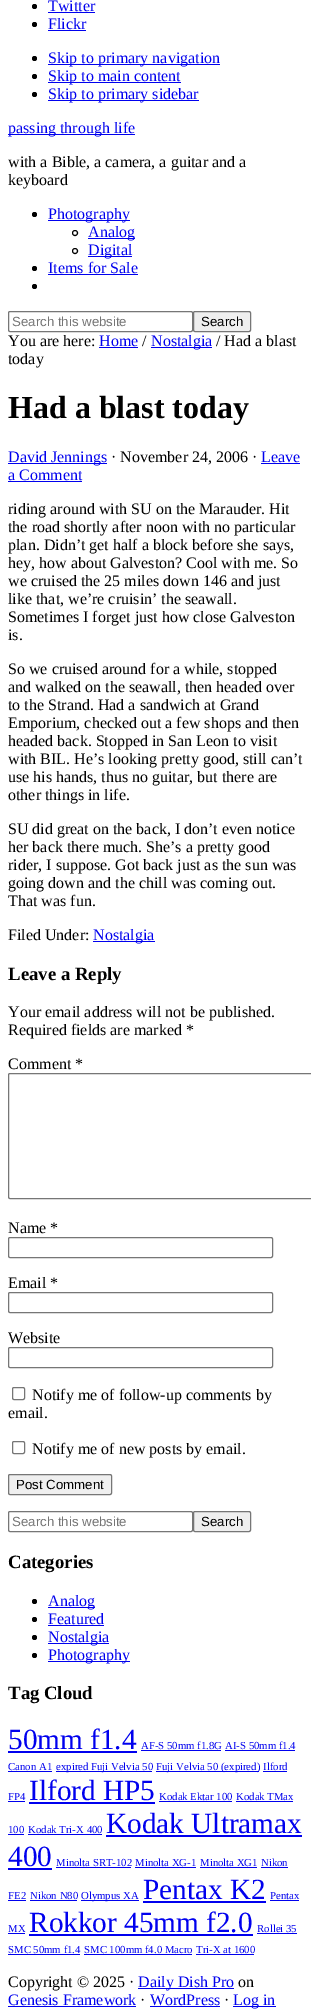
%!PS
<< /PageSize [311 2012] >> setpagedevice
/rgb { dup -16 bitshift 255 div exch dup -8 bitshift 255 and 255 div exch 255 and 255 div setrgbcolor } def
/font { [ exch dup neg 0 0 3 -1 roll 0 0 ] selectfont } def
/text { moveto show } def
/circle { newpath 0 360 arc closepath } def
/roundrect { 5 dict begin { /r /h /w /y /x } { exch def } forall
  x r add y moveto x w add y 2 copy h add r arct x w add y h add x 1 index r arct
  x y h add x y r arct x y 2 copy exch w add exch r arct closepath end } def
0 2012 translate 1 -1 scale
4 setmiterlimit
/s1 { /LiberationSerif-Regular 16 font 16#0000EE rgb } def
/s2 { /LiberationSerif-Regular 16 font 16#000000 rgb } def
/s3 { /LiberationSans-Regular 13.25 font 16#757575 rgb } def
/s4 { /LiberationSans-Regular 13.25 font 16#000000 rgb } def
/s5 { /LiberationSerif-Bold 32 font 16#000000 rgb } def
/s6 { /LiberationSerif-Bold 18.75 font 16#000000 rgb } def
/s7 { /LiberationSerif-Regular 29.25 font 16#0000EE rgb } def
/s8 { /LiberationSerif-Regular 10.75 font 16#0000EE rgb } def
16#FFFFFF rgb
0 0 311 2012 rectfill
16#000000 rgb
34.5 6.5 2.5 circle fill
s1
(Twitter) 48 11 text
48 12 47 1 rectfill
16#000000 rgb
34.5 24.5 2.5 circle fill
s1
(Flickr) 48 29 text
48 30 38 1 rectfill
16#000000 rgb
34.5 58.5 2.5 circle fill
16#0000EE rgb
48 64 172 1 rectfill
(Skip to primary navigation) 48 63 text
16#000000 rgb
34.5 76.5 2.5 circle fill
16#0000EE rgb
48 82 133 1 rectfill
(Skip to main content) 48 81 text
16#000000 rgb
34.5 94.5 2.5 circle fill
16#0000EE rgb
48 100 151 1 rectfill
(Skip to primary sidebar) 48 99 text
8 134 127 1 rectfill
(passing through life) 8 133 text
s2
(with a Bible, a camera, a guitar and a) 8 167 text
(keyboard) 8 185 text
34.5 214.5 2.5 circle fill
16#0000EE rgb
48 220 82 1 rectfill
(Photography) 48 219 text
16#000000 rgb
75 233 2.5 circle stroke
16#0000EE rgb
88 238 47 1 rectfill
(Analog) 88 237 text
16#000000 rgb
75 251 2.5 circle stroke
16#0000EE rgb
88 256 44 1 rectfill
(Digital) 88 255 text
16#000000 rgb
34.5 268.5 2.5 circle fill
s1
(Items for Sale) 48 273 text
48 274 90 1 rectfill
16#000000 rgb
34.5 286.5 2.5 circle fill
16#767676 rgb
8.5 311.5 184 20 1.5 roundrect stroke
s3
(Search this website) 12 326 text
16#EFEFEF rgb
193.5 311.5 57 20 1.5 roundrect gsave fill grestore
16#767676 rgb
stroke
s4
(Search) 201 326 text
s2
(You are here:) 8 346 text
s1
(Home) 99 346 text
99 347 39 1 rectfill
s2
(/) 142 346 text
16#0000EE rgb
151 347 61 1 rectfill
(Nostalgia) 151 346 text
s2
(/ Had a blast) 216 346 text
(today) 8 364 text
s5
(Had a blast today) 8 418 text
16#0000EE rgb
8 463 99 1 rectfill
s1
(David Jennings) 8 462 text
s2
(· November 24, 2006 ·) 111 462 text
s1
(Leave) 261 462 text
261 463 39 1 rectfill
(a Comment) 8 480 text
8 481 74 1 rectfill
s2
(riding around with SU on the Marauder. Hit) 8 514 text
(the road shortly after noon with no particular) 8 532 text
(plan. Didn’t get half a block before she says,) 8 550 text
(hey, how about Galveston? Cool with me. So) 8 568 text
(we cruised the 25 miles down 146 and just) 8 586 text
(like that, we’re cruisin’ the seawall.) 8 604 text
(Sometimes I forget just how close Galveston) 8 622 text
(is.) 8 640 text
(So we cruised around for a while, stopped) 8 674 text
(and walked on the seawall, then headed over) 8 692 text
(to the Strand. Had a sandwich at Grand) 8 710 text
(Emporium, checked out a few shops and then) 8 728 text
(headed back. Stopped in San Leon to visit) 8 746 text
(with BIL. He’s looking pretty good, still can’t) 8 764 text
(use his hands, thus no guitar, but there are) 8 782 text
(other things in life.) 8 800 text
(SU did great on the back, I don’t even notice) 8 834 text
(her back there much. She’s a pretty good) 8 852 text
(rider, I suppose. Got back just as the sun was) 8 870 text
(going down and the chill was coming out.) 8 888 text
(That was fun.) 8 906 text
(Filed Under:) 8 940 text
16#0000EE rgb
93 941 62 1 rectfill
(Nostalgia) 93 940 text
s6
(Leave a Reply) 8 980 text
s2
(Your email address will not be published.) 8 1017 text
(Required fields are marked *) 8 1035 text
(Comment *) 8 1069 text
16#767676 rgb
8.5 1073.5 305 125 1.5 roundrect stroke
s2
(Name *) 8 1233 text
16#767676 rgb
8.5 1237.5 264 20 1.5 roundrect stroke
s2
(Email *) 8 1288 text
16#767676 rgb
8.5 1292.5 264 20 1.5 roundrect stroke
s2
(Website) 8 1343 text
16#767676 rgb
8.5 1347.5 264 20 1.5 roundrect stroke
12.5 1387.5 12 12 1.5 roundrect stroke
s2
(Notify me of follow-up comments by) 32 1400 text
(email.) 8 1418 text
16#767676 rgb
12.5 1441.5 12 12 1.5 roundrect stroke
s2
(Notify me of new posts by email.) 32 1454 text
16#EFEFEF rgb
8.5 1474.5 103 20 1.5 roundrect gsave fill grestore
16#767676 rgb
stroke
s4
(Post Comment) 16 1489 text
16#767676 rgb
8.5 1511.5 184 20 1.5 roundrect stroke
s3
(Search this website) 12 1526 text
16#EFEFEF rgb
193.5 1511.5 57 20 1.5 roundrect gsave fill grestore
16#767676 rgb
stroke
s4
(Search) 201 1526 text
s6
(Categories) 8 1568 text
34.5 1601.5 2.5 circle fill
16#0000EE rgb
48 1607 47 1 rectfill
s1
(Analog) 48 1606 text
16#000000 rgb
34.5 1619.5 2.5 circle fill
s1
(Featured) 48 1624 text
48 1625 56 1 rectfill
16#000000 rgb
34.5 1637.5 2.5 circle fill
16#0000EE rgb
48 1643 61 1 rectfill
(Nostalgia) 48 1642 text
16#000000 rgb
34.5 1655.5 2.5 circle fill
16#0000EE rgb
48 1661 82 1 rectfill
(Photography) 48 1660 text
s6
(Tag Cloud) 8 1699 text
s7
(50mm f1.4) 8 1749 text
8 1751 129 2 rectfill
s8
(AF-S 50mm f1.8G) 141 1749 text
141 1750 80 1 rectfill
(AI-S 50mm f1.4) 225 1749 text
225 1750 70 1 rectfill
(Canon A1) 8 1770 text
8 1771 44 1 rectfill
56 1771 96 1 rectfill
(expired Fuji Velvia 50) 56 1770 text
156 1771 103 1 rectfill
(Fuji Velvia 50 \(expired\)) 156 1770 text
(Ilford) 263 1770 text
263 1771 24 1 rectfill
(FP4) 8 1800 text
8 1801 17 1 rectfill
s7
(Ilford HP5) 29 1800 text
29 1802 126 2 rectfill
s8
(Kodak Ektar 100) 159 1800 text
159 1801 73 1 rectfill
(Kodak TMax) 236 1800 text
236 1801 57 1 rectfill
(100) 8 1833 text
8 1834 16 1 rectfill
(Kodak Tri-X 400) 28 1833 text
28 1834 74 1 rectfill
s7
(Kodak Ultramax) 106 1833 text
106 1835 196 2 rectfill
(400) 8 1866 text
8 1868 44 2 rectfill
s8
(Minolta SRT-102) 56 1866 text
56 1867 75 1 rectfill
(Minolta XG-1) 135 1866 text
135 1867 61 1 rectfill
(Minolta XG1) 200 1866 text
200 1867 57 1 rectfill
(Nikon) 261 1866 text
261 1867 27 1 rectfill
(FE2) 8 1899 text
8 1900 18 1 rectfill
(Nikon N80) 30 1899 text
30 1900 47 1 rectfill
81 1900 58 1 rectfill
(Olympus XA) 81 1899 text
s7
(Pentax K2) 143 1899 text
143 1901 123 2 rectfill
s8
(Pentax) 270 1899 text
270 1900 29 1 rectfill
(MX) 8 1932 text
8 1933 17 1 rectfill
s7
(Rokkor 45mm f2.0) 29 1932 text
29 1934 224 2 rectfill
s8
(Rollei 35) 257 1932 text
257 1933 40 1 rectfill
(SMC 50mm f1.4) 8 1953 text
8 1954 72 1 rectfill
(SMC 100mm f4.0 Macro) 84 1953 text
84 1954 108 1 rectfill
(Tri-X at 1600) 196 1953 text
196 1954 58 1 rectfill
s2
(Copyright © 2025 ·) 8 1987 text
16#0000EE rgb
138 1988 96 1 rectfill
(Daily Dish Pro) 138 1987 text
s2
(on) 238 1987 text
s1
(Genesis Framework) 8 2005 text
8 2006 128 1 rectfill
s2
(·) 140 2005 text
s1
(WordPress) 150 2005 text
150 2006 70 1 rectfill
s2
(·) 224 2005 text
16#0000EE rgb
233 2006 43 1 rectfill
(Log in) 233 2005 text
showpage
